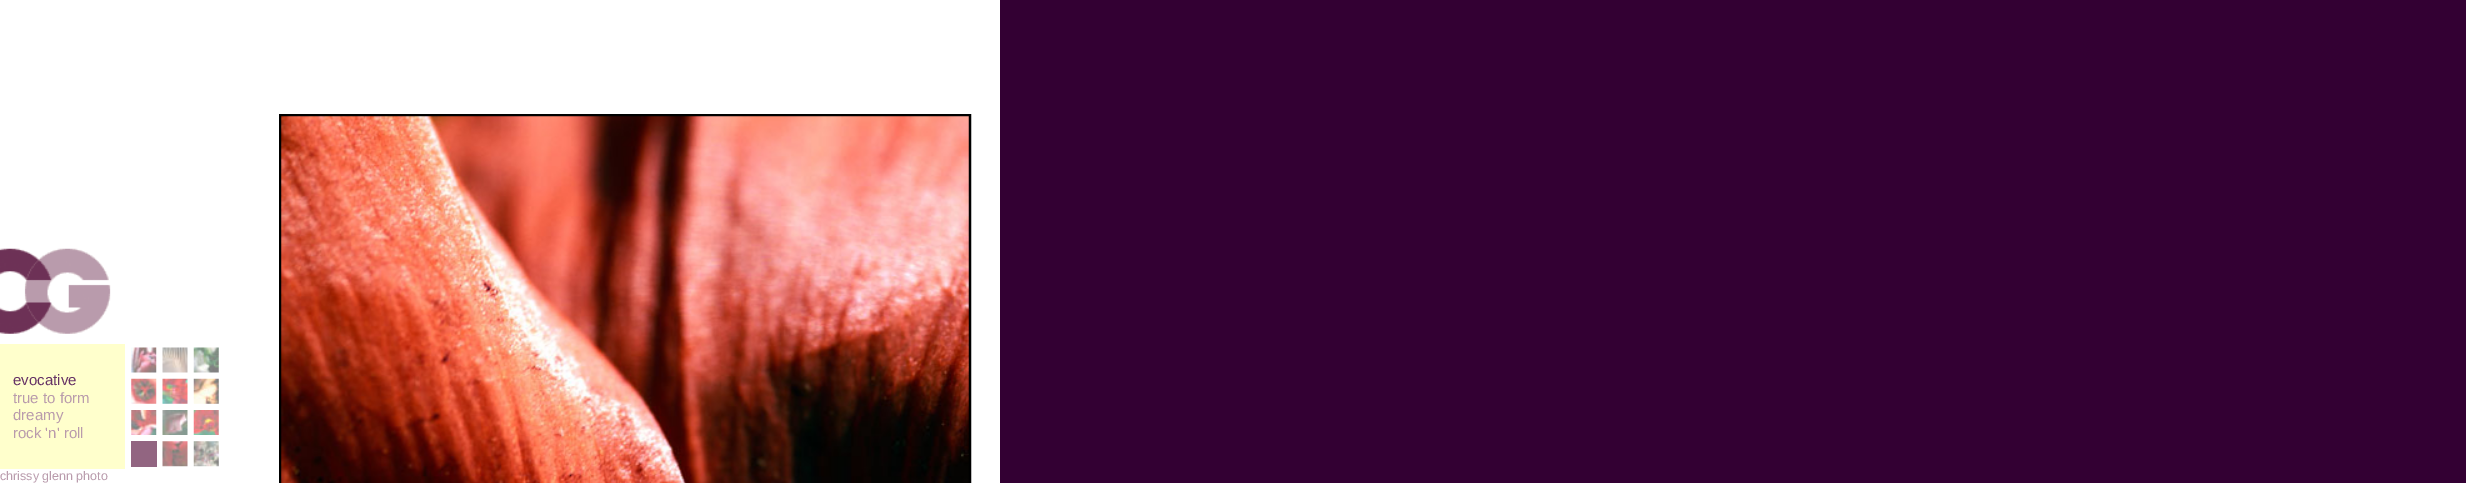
%!PS
<< /PageSize [2466 483] >> setpagedevice
/rgb { dup -16 bitshift 255 div exch dup -8 bitshift 255 and 255 div exch 255 and 255 div setrgbcolor } def
/font { [ exch dup neg 0 0 3 -1 roll 0 0 ] selectfont } def
/text { moveto show } def
/picture { 5 dict begin { /h /w /y /x /name } { exch def } forall
  gsave x y translate w h scale
  w h 8 [w 0 0 h 0 0] name (r) file false 3 colorimage grestore end } def
0 483 translate 1 -1 scale
4 setmiterlimit
/s1 { /LiberationSans-Regular 15 font 16#663366 rgb } def
/s2 { /LiberationSans-Regular 15 font 16#B99BAC rgb } def
/s3 { /LiberationSans-Regular 12.5 font 16#B99BAC rgb } def
16#330033 rgb
0 0 2466 483 rectfill
16#FFFFFF rgb
0 0 1000 483 rectfill
(pic1.raw) 0 248 111 86 picture
16#000000 rgb
3 setlinewidth
280.5 115.5 689 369 rectstroke
(pic2.raw) 281 116 688 367 picture
16#FFFFCC rgb
0 344 125 125 rectfill
(pic3.raw) 131 347 26 26 picture
(pic4.raw) 162 347 26 26 picture
(pic5.raw) 193 347 26 26 picture
(pic6.raw) 131 378 26 26 picture
(pic7.raw) 162 378 26 26 picture
(pic8.raw) 193 378 26 26 picture
(pic9.raw) 131 410 26 25 picture
(pic10.raw) 162 410 26 25 picture
(pic11.raw) 193 410 26 25 picture
16#926581 rgb
131 441 26 26 rectfill
(pic12.raw) 162 441 26 26 picture
(pic13.raw) 193 441 26 26 picture
s1
(evocative) 13 385 text
s2
(true to form) 13 403 text
(dreamy) 13 420 text
(rock 'n' roll) 13 438 text
s3
(chrissy glenn photo) 0 480 text
showpage
